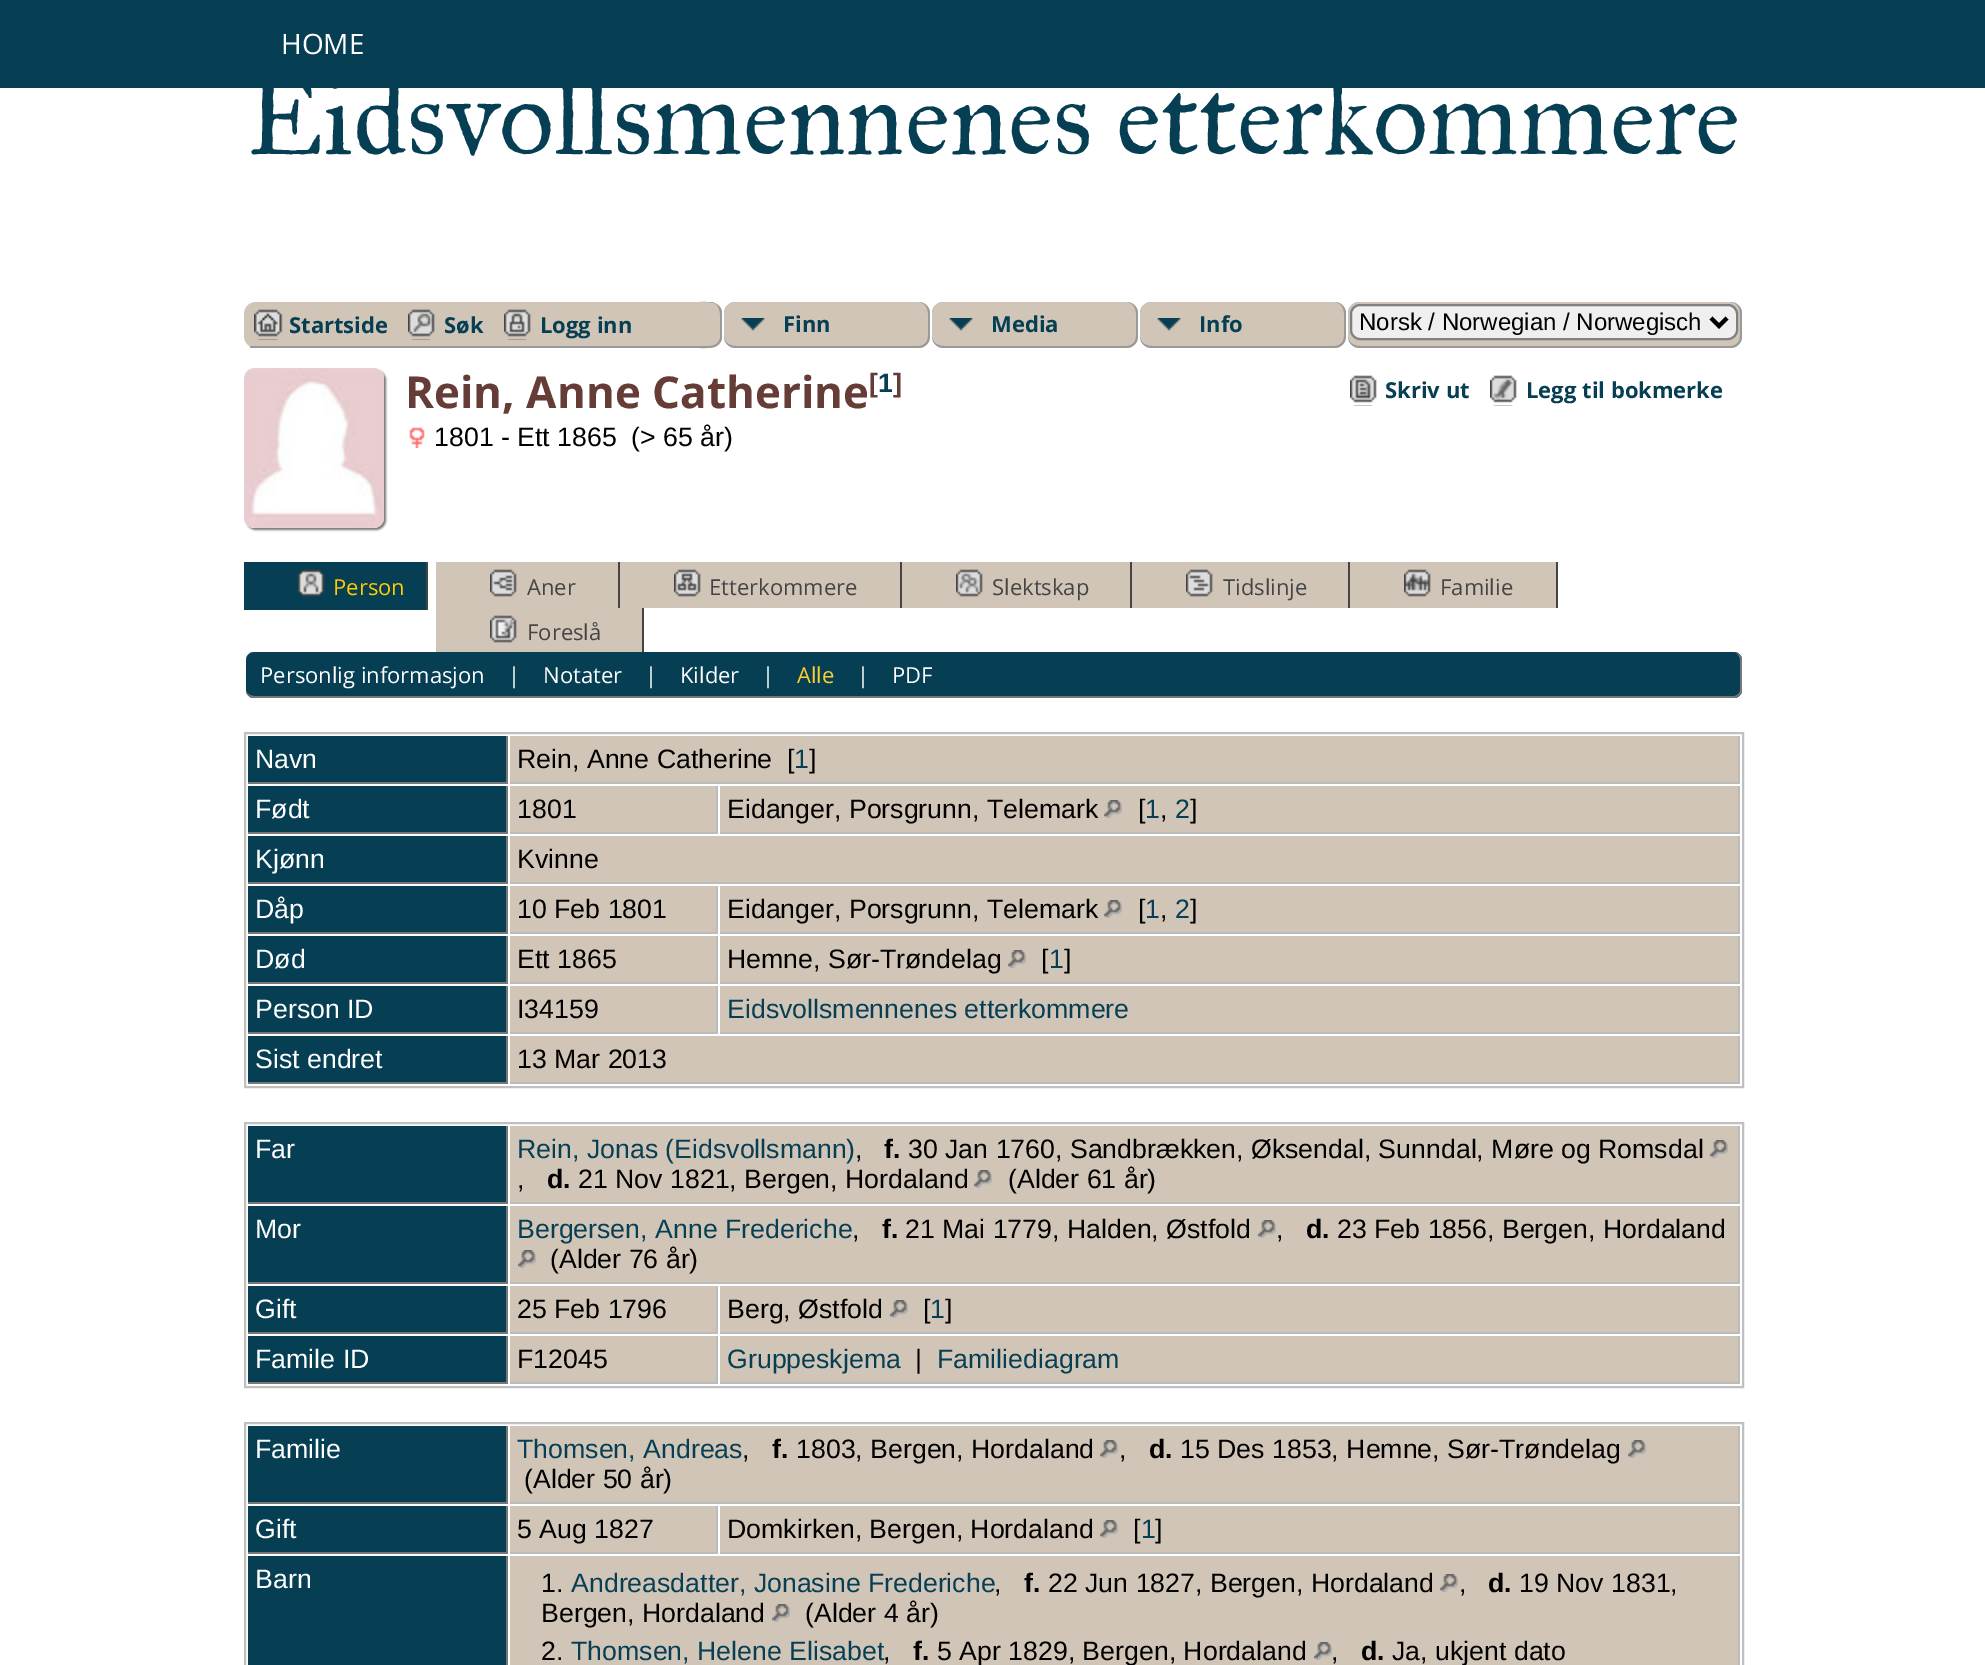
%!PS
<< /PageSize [1985 1665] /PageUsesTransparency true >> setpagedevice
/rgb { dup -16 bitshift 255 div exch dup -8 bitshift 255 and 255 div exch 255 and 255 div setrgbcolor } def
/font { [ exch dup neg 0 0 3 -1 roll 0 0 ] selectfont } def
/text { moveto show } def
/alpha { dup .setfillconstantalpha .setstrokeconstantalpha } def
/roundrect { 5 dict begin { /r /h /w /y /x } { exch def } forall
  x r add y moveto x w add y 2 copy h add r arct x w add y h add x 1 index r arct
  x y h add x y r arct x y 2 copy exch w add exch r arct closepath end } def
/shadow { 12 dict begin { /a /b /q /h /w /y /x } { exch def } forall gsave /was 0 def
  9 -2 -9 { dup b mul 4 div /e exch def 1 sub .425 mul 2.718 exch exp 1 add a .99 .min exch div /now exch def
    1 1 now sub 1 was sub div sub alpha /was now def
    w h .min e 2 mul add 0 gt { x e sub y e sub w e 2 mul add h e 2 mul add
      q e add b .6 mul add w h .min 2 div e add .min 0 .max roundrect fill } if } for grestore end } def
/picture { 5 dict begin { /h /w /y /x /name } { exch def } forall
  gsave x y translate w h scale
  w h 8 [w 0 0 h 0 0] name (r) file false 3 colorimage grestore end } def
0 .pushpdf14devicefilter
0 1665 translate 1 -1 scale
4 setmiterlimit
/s1 { /OpenSans-Regular 28 font 16#FFFFFF rgb } def
/s2 { /IMFELLGreatPrimer-Regular 108 font 16#063E53 rgb } def
/s3 { /OpenSans-Bold 22 font 16#063E53 rgb } def
/s4 { /LiberationSans-Regular 24 font 16#000000 rgb } def
/s5 { /OpenSans-Bold 44 font 16#663C36 rgb } def
/s6 { /LiberationSans-Bold 26.7 font 16#663C36 rgb } def
/s7 { /LiberationSans-Bold 26.7 font 16#063E53 rgb } def
/s8 { /LiberationSans-Regular 26.7 font 16#000000 rgb } def
/s9 { /OpenSans-Regular 22 font 16#FFCC00 rgb } def
/s10 { /OpenSans-Regular 22 font 16#444444 rgb } def
/s11 { /OpenSans-Regular 22 font 16#FFFFFF rgb } def
/s12 { /OpenSans-Regular 22 font 16#FFCC33 rgb } def
/s13 { /LiberationSans-Regular 26.7 font 16#FFFFFF rgb } def
/s14 { /LiberationSans-Regular 26.7 font 16#063E53 rgb } def
/s15 { /LiberationSans-Bold 26.7 font 16#000000 rgb } def
16#FFFFFF rgb
0 0 1985 1665 rectfill
16#063E53 rgb
0 0 1985 88 rectfill
s1
(HOME) 281 54 text
s2
(Eidsvollsmennenes etterkommere) 246 154 text
16#D1C5B7 rgb
244 302 1500 46 12 roundrect fill
16#999999 rgb
250 346 450 2 rectfill
(pic1.raw) 254 309 29 31 picture
s3
(Startside) 289 333 text
(pic2.raw) 408 309 27 31 picture
(Søk) 444 333 text
(pic3.raw) 504 309 27 31 picture
(Logg inn) 540 333 text
16#FFFFFF rgb
710 302 1034 46 rectfill
16#D1C5B7 rgb
700 302 moveto 710 302 lineto 716.5 302 722 307.5 722 314 curveto 722 336 lineto 722 342.5 716.5 348 710 348 curveto 700 348 lineto closepath fill
16#999999 rgb
700 302 moveto 708 302 720 301 722 312 curveto 722 338 lineto 720 349 708 348 700 348 curveto closepath 700 302 moveto 712 302 lineto 722 305 720 318 720 325 curveto 720 338 lineto 718 348 707 346 700 346 curveto closepath eofill
16#D1C5B7 rgb
724 302 206 46 12 roundrect fill
(pic4.raw) 741 318 24 13 picture
16#999999 rgb
736 302 moveto 918 302 lineto 925 302 930 307 930 314 curveto 930 336 lineto 930 343 925 348 918 348 curveto 736 348 lineto 729 348 724 343 724 336 curveto 724 314 lineto 724 307 729 302 736 302 curveto closepath 736 302 moveto 918 302 lineto 924 302 928 307 928 314 curveto 928 336 lineto 928 342 924 346 918 346 curveto 736 346 lineto 729 346 724 342 724 336 curveto 724 314 lineto 724 307 729 302 736 302 curveto closepath eofill
s3
(Finn) 783 332 text
16#D1C5B7 rgb
932 302 206 46 12 roundrect fill
(pic4.raw) 949 318 24 13 picture
16#999999 rgb
944 302 moveto 1126 302 lineto 1133 302 1138 307 1138 314 curveto 1138 336 lineto 1138 343 1133 348 1126 348 curveto 944 348 lineto 937 348 932 343 932 336 curveto 932 314 lineto 932 307 937 302 944 302 curveto closepath 944 302 moveto 1126 302 lineto 1132 302 1136 307 1136 314 curveto 1136 336 lineto 1136 342 1132 346 1126 346 curveto 944 346 lineto 937 346 932 342 932 336 curveto 932 314 lineto 932 307 937 302 944 302 curveto closepath eofill
s3
(Media) 991 332 text
16#D1C5B7 rgb
1140 302 206 46 12 roundrect fill
(pic4.raw) 1157 318 24 13 picture
16#999999 rgb
1152 302 moveto 1334 302 lineto 1341 302 1346 307 1346 314 curveto 1346 336 lineto 1346 343 1341 348 1334 348 curveto 1152 348 lineto 1145 348 1140 343 1140 336 curveto 1140 314 lineto 1140 307 1145 302 1152 302 curveto closepath 1152 302 moveto 1334 302 lineto 1340 302 1344 307 1344 314 curveto 1344 336 lineto 1344 342 1340 346 1334 346 curveto 1152 346 lineto 1145 346 1140 342 1140 336 curveto 1140 314 lineto 1140 307 1145 302 1152 302 curveto closepath eofill
s3
(Info) 1199 332 text
16#D1C5B7 rgb
1348 302 394 46 12 roundrect fill
16#999999 rgb
1360 302 moveto 1730 302 lineto 1737 302 1742 307 1742 314 curveto 1742 336 lineto 1742 343 1737 348 1730 348 curveto 1360 348 lineto 1353 348 1348 343 1348 336 curveto 1348 314 lineto 1348 307 1353 302 1360 302 curveto closepath 1360 302 moveto 1730 302 lineto 1736 302 1740 307 1740 314 curveto 1740 336 lineto 1740 342 1736 346 1730 346 curveto 1360 346 lineto 1353 346 1348 342 1348 336 curveto 1348 314 lineto 1348 307 1353 302 1360 302 curveto closepath eofill
16#EFEFEF rgb
1351 305 386 34 9 roundrect gsave fill grestore
16#808080 rgb
2 setlinewidth
stroke
16#000000 rgb
4 setlinewidth
1711 318 moveto 1719 326 lineto 1727 318 lineto stroke
s4
(Norsk / Norwegian / Norwegisch) 1359 330 text
16#777777 rgb
246 370 140 160 10 1 1 shadow
(pic5.raw) 244 368 140 160 picture
s5
(Rein, Anne Catherine) 405 408 text
s6
([) 869 392 text
s7
(1) 878 392 text
s6
(]) 893 392 text
(pic6.raw) 409 427 16 21 picture
s8
(1801 - Ett 1865  \(> 65 år\)) 434 446 text
16#063E53 rgb
244 562 182 48 rectfill
16#444444 rgb
426 562 2 48 rectfill
(pic7.raw) 298 569 27 28 picture
s9
(Person) 333 595 text
16#D1C5B7 rgb
436 562 182 46 rectfill
16#444444 rgb
618 562 2 46 rectfill
(pic8.raw) 490 569 27 28 picture
(Aner) 527 595 text
16#D1C5B7 rgb
620 562 280 46 rectfill
16#444444 rgb
900 562 2 46 rectfill
(pic9.raw) 674 569 27 28 picture
(Etterkommere) 709 595 text
16#D1C5B7 rgb
902 562 228 46 rectfill
16#444444 rgb
1130 562 2 46 rectfill
(pic10.raw) 956 569 27 28 picture
(Slektskap) 992 595 text
16#D1C5B7 rgb
1132 562 216 46 rectfill
16#444444 rgb
1348 562 2 46 rectfill
(pic11.raw) 1186 569 27 28 picture
(Tidslinje) 1223 595 text
16#D1C5B7 rgb
1350 562 206 46 rectfill
16#444444 rgb
1556 562 2 46 rectfill
(pic12.raw) 1404 569 27 28 picture
(Familie) 1440 595 text
16#D1C5B7 rgb
436 608 206 44 rectfill
16#444444 rgb
642 608 2 44 rectfill
(pic13.raw) 490 615 27 28 picture
(Foreslå) 527 640 text
16#063E53 rgb
246 652 1496 46 8 roundrect fill
16#777777 rgb
254 652 moveto 1734 652 lineto 1738 652 1742 656 1742 660 curveto 1742 690 lineto 1742 694 1738 698 1734 698 curveto 254 698 lineto 250 698 246 694 246 690 curveto 246 660 lineto 246 656 250 652 254 652 curveto closepath 254 652 moveto 1734 652 lineto 1737 652 1740 656 1740 660 curveto 1740 690 lineto 1740 693 1737 696 1734 696 curveto 254 696 lineto 250 696 246 693 246 690 curveto 246 660 lineto 246 656 250 652 254 652 curveto closepath eofill
s11
(Personlig informasjon) 260 683 text
(|) 508 683 text
(Notater) 543 683 text
(|) 645 683 text
(Kilder) 680 683 text
(|) 762 683 text
s12
(Alle) 797 683 text
s11
(|) 857 683 text
(PDF) 892 683 text
16#C0C0C0 rgb
2 setlinewidth
245 733 1498 354 rectstroke
16#063E53 rgb
248 736 258 46 rectfill
16#777777 rgb
506 736 2 48 rectfill
248 782 260 2 rectfill
s13
(Navn) 255 768 text
16#D1C5B7 rgb
510 736 1228 46 rectfill
16#BBBBBB rgb
1738 736 2 48 rectfill
510 782 1230 2 rectfill
s8
(Rein, Anne Catherine) 517 768 text
([) 787 768 text
s14
(1) 794 768 text
s8
(]) 809 768 text
16#063E53 rgb
248 786 258 46 rectfill
16#777777 rgb
506 786 2 48 rectfill
248 832 260 2 rectfill
s13
(Født) 255 818 text
16#D1C5B7 rgb
510 786 206 46 rectfill
16#BBBBBB rgb
716 786 2 48 rectfill
510 832 208 2 rectfill
s8
(1801) 517 818 text
16#D1C5B7 rgb
720 786 1018 46 rectfill
16#BBBBBB rgb
1738 786 2 48 rectfill
720 832 1020 2 rectfill
s8
(Eidanger, Porsgrunn, Telemark) 727 818 text
(pic14.raw) 1104 800 18 18 picture
([) 1138 818 text
s14
(1) 1145 818 text
s8
(,) 1160 818 text
s14
(2) 1175 818 text
s8
(]) 1190 818 text
16#063E53 rgb
248 836 258 46 rectfill
16#777777 rgb
506 836 2 48 rectfill
248 882 260 2 rectfill
s13
(Kjønn) 255 868 text
16#D1C5B7 rgb
510 836 1228 46 rectfill
16#BBBBBB rgb
1738 836 2 48 rectfill
510 882 1230 2 rectfill
s8
(Kvinne) 517 868 text
16#063E53 rgb
248 886 258 46 rectfill
16#777777 rgb
506 886 2 48 rectfill
248 932 260 2 rectfill
s13
(Dåp) 255 918 text
16#D1C5B7 rgb
510 886 206 46 rectfill
16#BBBBBB rgb
716 886 2 48 rectfill
510 932 208 2 rectfill
s8
(10 Feb 1801) 517 918 text
16#D1C5B7 rgb
720 886 1018 46 rectfill
16#BBBBBB rgb
1738 886 2 48 rectfill
720 932 1020 2 rectfill
s8
(Eidanger, Porsgrunn, Telemark) 727 918 text
(pic14.raw) 1104 900 18 18 picture
([) 1138 918 text
s14
(1) 1145 918 text
s8
(,) 1160 918 text
s14
(2) 1175 918 text
s8
(]) 1190 918 text
16#063E53 rgb
248 936 258 46 rectfill
16#777777 rgb
506 936 2 48 rectfill
248 982 260 2 rectfill
s13
(Død) 255 968 text
16#D1C5B7 rgb
510 936 206 46 rectfill
16#BBBBBB rgb
716 936 2 48 rectfill
510 982 208 2 rectfill
s8
(Ett 1865) 517 968 text
16#D1C5B7 rgb
720 936 1018 46 rectfill
16#BBBBBB rgb
1738 936 2 48 rectfill
720 982 1020 2 rectfill
s8
(Hemne, Sør-Trøndelag) 727 968 text
(pic14.raw) 1008 950 18 18 picture
([) 1041 968 text
s14
(1) 1049 968 text
s8
(]) 1064 968 text
16#063E53 rgb
248 986 258 46 rectfill
16#777777 rgb
506 986 2 48 rectfill
248 1032 260 2 rectfill
s13
(Person ID) 255 1018 text
16#D1C5B7 rgb
510 986 206 46 rectfill
16#BBBBBB rgb
716 986 2 48 rectfill
510 1032 208 2 rectfill
s8
(I34159) 517 1018 text
16#D1C5B7 rgb
720 986 1018 46 rectfill
16#BBBBBB rgb
1738 986 2 48 rectfill
720 1032 1020 2 rectfill
s14
(Eidsvollsmennenes etterkommere) 727 1018 text
248 1036 258 46 rectfill
16#777777 rgb
506 1036 2 48 rectfill
248 1082 260 2 rectfill
s13
(Sist endret) 255 1068 text
16#D1C5B7 rgb
510 1036 1228 46 rectfill
16#BBBBBB rgb
1738 1036 2 48 rectfill
510 1082 1230 2 rectfill
s8
(13 Mar 2013) 517 1068 text
16#C0C0C0 rgb
245 1123 1498 264 rectstroke
16#063E53 rgb
248 1126 258 76 rectfill
16#777777 rgb
506 1126 2 78 rectfill
248 1202 260 2 rectfill
s13
(Far) 255 1158 text
16#D1C5B7 rgb
510 1126 1228 76 rectfill
16#BBBBBB rgb
1738 1126 2 78 rectfill
510 1202 1230 2 rectfill
s14
(Rein, Jonas \(Eidsvollsmann\)) 517 1158 text
s8
(,) 855 1158 text
s15
(f.) 884 1158 text
s8
(30 Jan 1760, Sandbrækken, Øksendal, Sunndal, Møre og Romsdal) 908 1158 text
(pic14.raw) 1710 1140 18 18 picture
(,) 517 1188 text
s15
(d.) 547 1188 text
s8
(21 Nov 1821, Bergen, Hordaland) 578 1188 text
(pic14.raw) 974 1170 18 18 picture
(\(Alder 61 år\)) 1008 1188 text
16#063E53 rgb
248 1206 258 76 rectfill
16#777777 rgb
506 1206 2 78 rectfill
248 1282 260 2 rectfill
s13
(Mor) 255 1238 text
16#D1C5B7 rgb
510 1206 1228 76 rectfill
16#BBBBBB rgb
1738 1206 2 78 rectfill
510 1282 1230 2 rectfill
s14
(Bergersen, Anne Frederiche) 517 1238 text
s8
(,) 852 1238 text
s15
(f.) 882 1238 text
s8
(21 Mai 1779, Halden, Østfold) 905 1238 text
(pic14.raw) 1258 1220 18 18 picture
(,) 1276 1238 text
s15
(d.) 1306 1238 text
s8
(23 Feb 1856, Bergen, Hordaland) 1337 1238 text
(pic14.raw) 518 1250 18 18 picture
(\(Alder 76 år\)) 550 1268 text
16#063E53 rgb
248 1286 258 46 rectfill
16#777777 rgb
506 1286 2 48 rectfill
248 1332 260 2 rectfill
s13
(Gift) 255 1318 text
16#D1C5B7 rgb
510 1286 206 46 rectfill
16#BBBBBB rgb
716 1286 2 48 rectfill
510 1332 208 2 rectfill
s8
(25 Feb 1796) 517 1318 text
16#D1C5B7 rgb
720 1286 1018 46 rectfill
16#BBBBBB rgb
1738 1286 2 48 rectfill
720 1332 1020 2 rectfill
s8
(Berg, Østfold) 727 1318 text
(pic14.raw) 890 1300 18 18 picture
([) 923 1318 text
s14
(1) 930 1318 text
s8
(]) 945 1318 text
16#063E53 rgb
248 1336 258 46 rectfill
16#777777 rgb
506 1336 2 48 rectfill
248 1382 260 2 rectfill
s13
(Famile ID) 255 1368 text
16#D1C5B7 rgb
510 1336 206 46 rectfill
16#BBBBBB rgb
716 1336 2 48 rectfill
510 1382 208 2 rectfill
s8
(F12045) 517 1368 text
16#D1C5B7 rgb
720 1336 1018 46 rectfill
16#BBBBBB rgb
1738 1336 2 48 rectfill
720 1382 1020 2 rectfill
s14
(Gruppeskjema) 727 1368 text
s8
(|) 915 1368 text
s14
(Familiediagram) 937 1368 text
16#C0C0C0 rgb
245 1423 1498 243 rectstroke
16#063E53 rgb
248 1426 258 76 rectfill
16#777777 rgb
506 1426 2 78 rectfill
248 1502 260 2 rectfill
s13
(Familie) 255 1458 text
16#D1C5B7 rgb
510 1426 1228 76 rectfill
16#BBBBBB rgb
1738 1426 2 78 rectfill
510 1502 1230 2 rectfill
s14
(Thomsen, Andreas) 517 1458 text
s8
(,) 742 1458 text
s15
(f.) 772 1458 text
s8
(1803, Bergen, Hordaland) 796 1458 text
(pic14.raw) 1100 1440 18 18 picture
(,) 1119 1458 text
s15
(d.) 1149 1458 text
s8
(15 Des 1853, Hemne, Sør-Trøndelag) 1180 1458 text
(pic14.raw) 1628 1440 18 18 picture
(\(Alder 50 år\)) 524 1488 text
16#063E53 rgb
248 1506 258 46 rectfill
16#777777 rgb
506 1506 2 48 rectfill
248 1552 260 2 rectfill
s13
(Gift) 255 1538 text
16#D1C5B7 rgb
510 1506 206 46 rectfill
16#BBBBBB rgb
716 1506 2 48 rectfill
510 1552 208 2 rectfill
s8
(5 Aug 1827) 517 1538 text
16#D1C5B7 rgb
720 1506 1018 46 rectfill
16#BBBBBB rgb
1738 1506 2 48 rectfill
720 1552 1020 2 rectfill
s8
(Domkirken, Bergen, Hordaland) 727 1538 text
(pic14.raw) 1100 1520 18 18 picture
([) 1133 1538 text
s14
(1) 1141 1538 text
s8
(]) 1155 1538 text
16#063E53 rgb
248 1556 258 109 rectfill
16#777777 rgb
506 1556 2 109 rectfill
s13
(Barn) 255 1588 text
16#D1C5B7 rgb
510 1556 1228 109 rectfill
16#BBBBBB rgb
1738 1556 2 109 rectfill
s8
(1.) 541 1592 text
s14
(Andreasdatter, Jonasine Frederiche) 571 1592 text
s8
(,) 994 1592 text
s15
(f.) 1024 1592 text
s8
(22 Jun 1827, Bergen, Hordaland) 1048 1592 text
(pic14.raw) 1440 1574 18 18 picture
(,) 1459 1592 text
s15
(d.) 1488 1592 text
s8
(19 Nov 1831,) 1519 1592 text
(Bergen, Hordaland) 541 1622 text
(pic14.raw) 772 1604 18 18 picture
(\(Alder 4 år\)) 805 1622 text
(2.) 541 1660 text
s14
(Thomsen, Helene Elisabet) 571 1660 text
s8
(,) 883 1660 text
s15
(f.) 913 1660 text
s8
(5 Apr 1829, Bergen, Hordaland) 937 1660 text
(pic14.raw) 1314 1642 18 18 picture
(,) 1331 1660 text
s15
(d.) 1361 1660 text
s8
(Ja, ukjent dato) 1392 1660 text
(pic15.raw) 1350 375 27 31 picture
s3
(Skriv ut) 1385 398 text
(pic16.raw) 1490 375 27 31 picture
(Legg til bokmerke) 1526 398 text
.poppdf14devicefilter showpage
